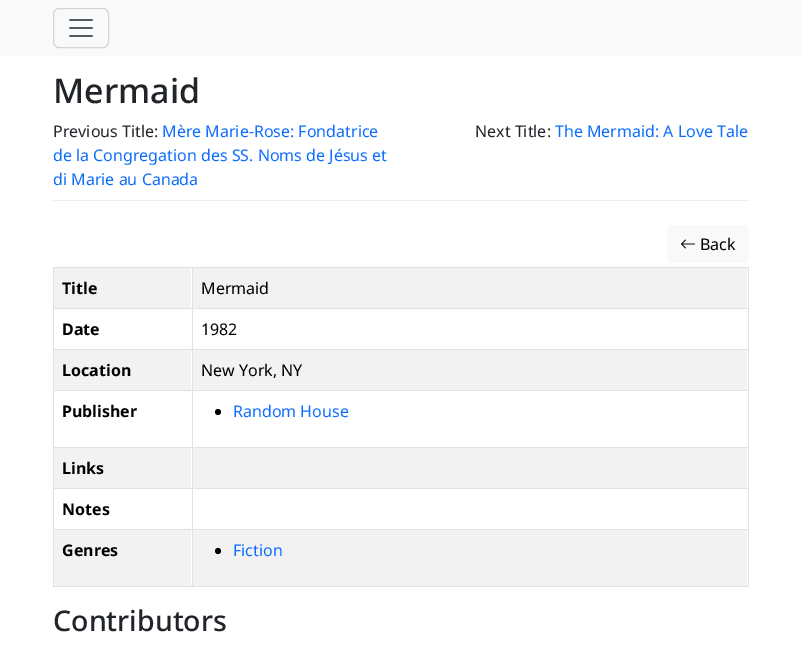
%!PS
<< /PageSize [801 652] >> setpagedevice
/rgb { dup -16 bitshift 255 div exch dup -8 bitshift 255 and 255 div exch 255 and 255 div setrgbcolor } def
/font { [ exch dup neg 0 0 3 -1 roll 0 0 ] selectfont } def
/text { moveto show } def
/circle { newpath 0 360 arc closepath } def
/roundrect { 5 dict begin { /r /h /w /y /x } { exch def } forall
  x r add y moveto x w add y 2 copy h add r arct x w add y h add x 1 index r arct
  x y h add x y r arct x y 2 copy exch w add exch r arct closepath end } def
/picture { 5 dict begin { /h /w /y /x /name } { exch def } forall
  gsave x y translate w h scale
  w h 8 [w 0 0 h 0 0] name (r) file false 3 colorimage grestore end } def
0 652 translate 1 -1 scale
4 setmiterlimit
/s1 { /NotoSans-Medium 34 font 16#212529 rgb } def
/s2 { /NotoSans-Regular 16 font 16#212529 rgb } def
/s3 { /NotoSans-Regular 16 font 16#0D6EFD rgb } def
/s4 { /NotoSans-Regular 16 font 16#000000 rgb } def
/s5 { /NotoSans-Bold 16 font 16#000000 rgb } def
/s6 { /NotoSans-Medium 28.5 font 16#212529 rgb } def
16#FFFFFF rgb
0 0 801 652 rectfill
16#F8F9FA rgb
0 0 801 56 rectfill
16#D3D4D5 rgb
53.5 8.5 55 39 5.5 roundrect stroke
(pic1.raw) 69 19 24 18 picture
16#EEEEEE rgb
53 200 696 1 rectfill
s1
(Mermaid) 53 103 text
s2
(Previous Title:) 53 137 text
s3
(Mère Marie-Rose: Fondatrice) 162 137 text
(de la Congregation des SS. Noms de Jésus et) 53 161 text
(di Marie au Canada) 53 185 text
s2
(Next Title:) 475 137 text
s3
(The Mermaid: A Love Tale) 555 137 text
16#F8F9FA rgb
667 225 82 38 6 roundrect fill
(pic2.raw) 681 239 14 10 picture
s4
(Back) 700 250 text
16#DEE2E6 rgb
53 267 696 1 rectfill
16#F2F2F2 rgb
54 268 137 40 rectfill
s5
(Title) 62 294 text
16#F2F2F2 rgb
193 268 554 40 rectfill
s4
(Mermaid) 201 294 text
16#DEE2E6 rgb
53 308 696 1 rectfill
s5
(Date) 62 335 text
s4
(1982) 201 335 text
16#DEE2E6 rgb
53 349 696 1 rectfill
16#F2F2F2 rgb
54 350 137 40 rectfill
s5
(Location) 62 376 text
16#F2F2F2 rgb
193 350 554 40 rectfill
s4
(New York, NY) 201 376 text
16#DEE2E6 rgb
53 390 696 1 rectfill
s5
(Publisher) 62 417 text
218 412 3 circle fill
s3
(Random House) 233 417 text
16#DEE2E6 rgb
53 447 696 1 rectfill
16#F2F2F2 rgb
54 448 137 40 rectfill
s5
(Links) 62 474 text
16#F2F2F2 rgb
193 448 554 40 rectfill
16#DEE2E6 rgb
53 488 696 1 rectfill
s5
(Notes) 62 515 text
16#DEE2E6 rgb
53 529 696 1 rectfill
53 586 696 1 rectfill
16#F2F2F2 rgb
54 530 137 56 rectfill
16#DEE2E6 rgb
53 267 1 320 rectfill
s5
(Genres) 62 556 text
16#F2F2F2 rgb
193 530 554 56 rectfill
16#DEE2E6 rgb
748 267 1 320 rectfill
192 267 1 320 rectfill
16#000000 rgb
218 551 3 circle fill
s3
(Fiction) 233 556 text
s6
(Contributors) 53 631 text
showpage
